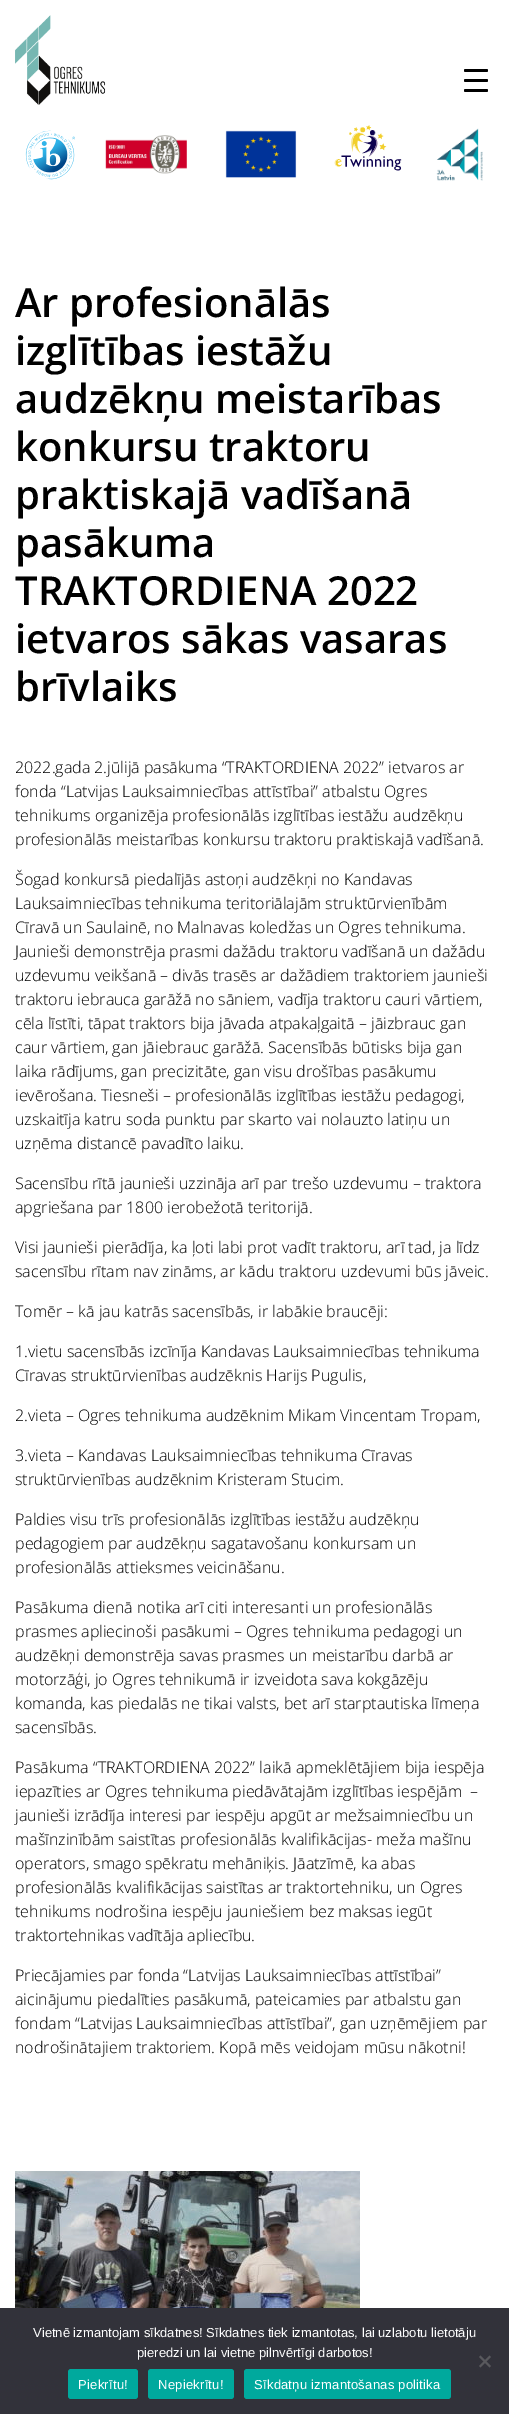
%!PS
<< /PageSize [509 2414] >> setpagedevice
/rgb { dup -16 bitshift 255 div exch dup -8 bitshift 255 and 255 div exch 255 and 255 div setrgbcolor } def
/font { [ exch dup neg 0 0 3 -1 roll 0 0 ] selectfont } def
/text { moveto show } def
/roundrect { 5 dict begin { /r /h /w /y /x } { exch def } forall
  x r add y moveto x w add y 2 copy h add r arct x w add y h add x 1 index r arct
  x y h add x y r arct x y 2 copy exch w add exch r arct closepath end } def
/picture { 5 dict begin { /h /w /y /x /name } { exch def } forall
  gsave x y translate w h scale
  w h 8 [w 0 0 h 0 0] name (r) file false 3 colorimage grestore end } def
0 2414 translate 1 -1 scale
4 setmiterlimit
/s1 { /OpenSans-SemiBold 40 font 16#000000 rgb } def
/s2 { /OpenSans-Light 16 font 16#000000 rgb } def
/s3 { /LiberationSans-Regular 13 font 16#FFFFFF rgb } def
16#FFFFFF rgb
0 0 509 2414 rectfill
(pic1.raw) 15 15 91 90 picture
16#000000 rgb
464 69 24 3 1.5 roundrect fill
464 79 24 3 1.5 roundrect fill
464 89 24 3 1.5 roundrect fill
(pic2.raw) 25 130 50 50 picture
(pic3.raw) 105 135 82 39 picture
(pic4.raw) 225 130 72 48 picture
(pic5.raw) 334 125 68 46 picture
(pic6.raw) 436 128 47 53 picture
s1
(Ar profesionālās) 15 317 text
(izglītības iestāžu) 15 365 text
(audzēkņu meistarības) 15 413 text
(konkursu traktoru) 15 461 text
(praktiskajā vadīšanā) 15 509 text
(pasākuma) 15 557 text
(TRAKTORDIENA 2022) 15 605 text
(ietvaros sākas vasaras) 15 653 text
(brīvlaiks) 15 701 text
s2
(2022.gada 2.jūlijā pasākuma “TRAKTORDIENA 2022” ietvaros ar) 15 773 text
(fonda “Latvijas Lauksaimniecības attīstībai” atbalstu Ogres) 15 797 text
(tehnikums organizēja profesionālās izglītības iestāžu audzēkņu) 15 821 text
(profesionālās meistarības konkursu traktoru praktiskajā vadīšanā.) 15 845 text
(Šogad konkursā piedalījās astoņi audzēkņi no Kandavas) 15 885 text
(Lauksaimniecības tehnikuma teritoriālajām struktūrvienībām) 15 909 text
(Cīravā un Saulainē, no Malnavas koledžas un Ogres tehnikuma.) 15 933 text
(Jaunieši demonstrēja prasmi dažādu traktoru vadīšanā un dažādu) 15 957 text
(uzdevumu veikšanā – divās trasēs ar dažādiem traktoriem jaunieši) 15 981 text
(traktoru iebrauca garāžā no sāniem, vadīja traktoru cauri vārtiem,) 15 1005 text
(cēla līstīti, tāpat traktors bija jāvada atpakaļgaitā – jāizbrauc gan) 15 1029 text
(caur vārtiem, gan jāiebrauc garāžā. Sacensībās būtisks bija gan) 15 1053 text
(laika rādījums, gan precizitāte, gan visu drošības pasākumu) 15 1077 text
(ievērošana. Tiesneši – profesionālās izglītības iestāžu pedagogi,) 15 1101 text
(uzskaitīja katru soda punktu par skarto vai nolauzto latiņu un) 15 1125 text
(uzņēma distancē pavadīto laiku.) 15 1149 text
(Sacensību rītā jaunieši uzzināja arī par trešo uzdevumu – traktora) 15 1189 text
(apgriešana par 1800 ierobežotā teritorijā.) 15 1213 text
(Visi jaunieši pierādīja, ka ļoti labi prot vadīt traktoru, arī tad, ja līdz) 15 1253 text
(sacensību rītam nav zināms, ar kādu traktoru uzdevumi būs jāveic.) 15 1277 text
(Tomēr – kā jau katrās sacensībās, ir labākie braucēji:) 15 1317 text
(1.vietu sacensībās izcīnīja Kandavas Lauksaimniecības tehnikuma) 15 1357 text
(Cīravas struktūrvienības audzēknis Harijs Pugulis,) 15 1381 text
(2.vieta – Ogres tehnikuma audzēknim Mikam Vincentam Tropam,) 15 1421 text
(3.vieta – Kandavas Lauksaimniecības tehnikuma Cīravas) 15 1461 text
(struktūrvienības audzēknim Kristeram Stucim.) 15 1485 text
(Paldies visu trīs profesionālās izglītības iestāžu audzēkņu) 15 1525 text
(pedagogiem par audzēkņu sagatavošanu konkursam un) 15 1549 text
(profesionālās attieksmes veicināšanu.) 15 1573 text
(Pasākuma dienā notika arī citi interesanti un profesionālās) 15 1613 text
(prasmes apliecinoši pasākumi – Ogres tehnikuma pedagogi un) 15 1637 text
(audzēkņi demonstrēja savas prasmes un meistarību darbā ar) 15 1661 text
(motorzāģi, jo Ogres tehnikumā ir izveidota sava kokgāzēju) 15 1685 text
(komanda, kas piedalās ne tikai valsts, bet arī starptautiska līmeņa) 15 1709 text
(sacensībās.) 15 1733 text
(Pasākuma “TRAKTORDIENA 2022” laikā apmeklētājiem bija iespēja) 15 1773 text
(iepazīties ar Ogres tehnikuma piedāvātajām izglītības iespējām  –) 15 1797 text
(jaunieši izrādīja interesi par iespēju apgūt ar mežsaimniecību un) 15 1821 text
(mašīnzinībām saistītas profesionālās kvalifikācijas- meža mašīnu) 15 1845 text
(operators, smago spēkratu mehāniķis. Jāatzīmē, ka abas) 15 1869 text
(profesionālās kvalifikācijas saistītas ar traktortehniku, un Ogres) 15 1893 text
(tehnikums nodrošina iespēju jauniešiem bez maksas iegūt) 15 1917 text
(traktortehnikas vadītāja apliecību.) 15 1941 text
(Priecājamies par fonda “Latvijas Lauksaimniecības attīstībai”) 15 1981 text
(aicinājumu piedalīties pasākumā, pateicamies par atbalstu gan) 15 2005 text
(fondam “Latvijas Lauksaimniecības attīstībai”, gan uzņēmējiem par) 15 2029 text
(nodrošinātajiem traktoriem. Kopā mēs veidojam mūsu nākotni!) 15 2053 text
(pic7.raw) 15 2171 345 137 picture
16#32323A rgb
0 2308 509 106 rectfill
s3
(Vietnē izmantojam sīkdatnes! Sīkdatnes tiek izmantotas, lai uzlabotu lietotāju) 33 2337 text
(pieredzi un lai vietne pilnvērtīgi darbotos!) 137 2357 text
16#59595D rgb
489.5 2355.5 moveto 491 2357 lineto 480.5 2367.5 lineto 479 2366 lineto closepath fill
479 2357 moveto 480.5 2355.5 lineto 491 2366 lineto 489.5 2367.5 lineto closepath fill
16#00A99D rgb
68 2369 70 30 3 roundrect fill
16#FFFFFF rgb
78 2389 moveto 0.25 0 (Piekrītu!) ashow
16#00A99D rgb
148 2369 86 30 3 roundrect fill
16#FFFFFF rgb
158 2389 moveto 0.25 0 (Nepiekrītu!) ashow
16#00A99D rgb
244 2369 207 30 3 roundrect fill
16#FFFFFF rgb
254 2389 moveto 0.25 0 (Sīkdatņu izmantošanas politika) ashow
showpage
